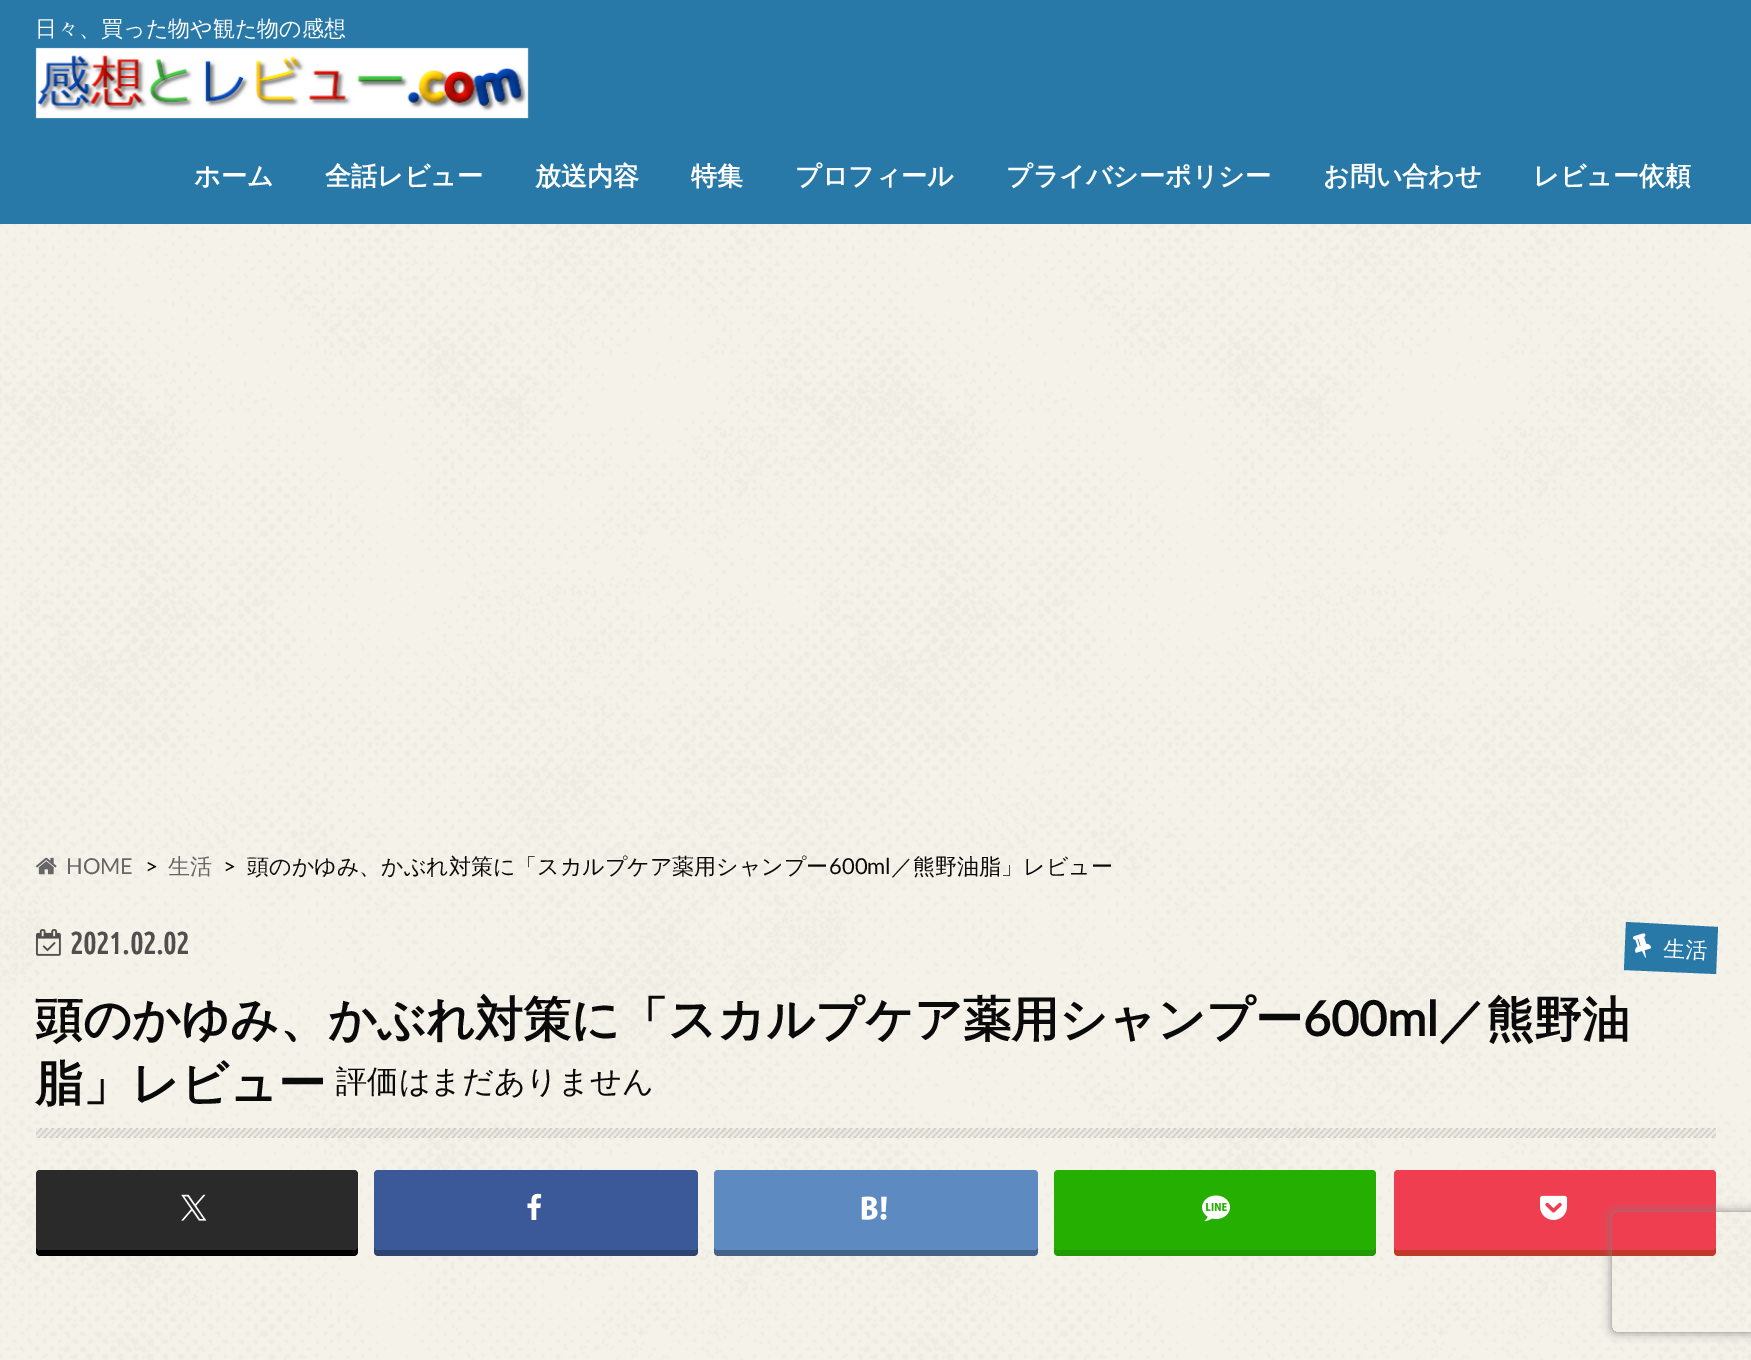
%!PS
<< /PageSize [1751 1360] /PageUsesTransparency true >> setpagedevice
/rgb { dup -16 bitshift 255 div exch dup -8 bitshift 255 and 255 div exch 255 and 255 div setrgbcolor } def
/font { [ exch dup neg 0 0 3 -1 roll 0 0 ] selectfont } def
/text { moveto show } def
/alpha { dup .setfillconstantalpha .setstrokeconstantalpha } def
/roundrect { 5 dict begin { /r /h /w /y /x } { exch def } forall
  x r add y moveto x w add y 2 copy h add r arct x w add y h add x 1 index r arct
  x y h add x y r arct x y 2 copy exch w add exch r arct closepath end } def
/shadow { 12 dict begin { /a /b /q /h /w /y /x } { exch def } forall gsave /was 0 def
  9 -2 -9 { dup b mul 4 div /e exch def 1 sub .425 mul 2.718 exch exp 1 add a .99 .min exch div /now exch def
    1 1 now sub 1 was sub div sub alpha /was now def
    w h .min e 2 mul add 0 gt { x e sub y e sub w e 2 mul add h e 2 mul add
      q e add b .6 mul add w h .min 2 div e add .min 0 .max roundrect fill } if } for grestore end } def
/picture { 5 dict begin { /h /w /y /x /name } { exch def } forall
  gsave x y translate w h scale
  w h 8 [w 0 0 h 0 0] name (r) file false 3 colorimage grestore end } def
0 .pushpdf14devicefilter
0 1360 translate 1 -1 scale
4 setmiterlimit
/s1 { /WenQuanYiZenHei-Medium 22 font 16#FFFFFF rgb } def
/s2 { /WenQuanYiZenHei-Bold 26 font 16#FFFFFF rgb } def
/s3 { /Lato-Regular 22 font 16#666666 rgb } def
/s4 { /Lato-Regular 22 font 16#0A0A0A rgb } def
/s5 { /WenQuanYiZenHei-Medium 22 font 16#666666 rgb } def
/s6 { /WenQuanYiZenHei-Medium 22 font 16#0A0A0A rgb } def
/s7 { /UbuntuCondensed-Bold 30.5 font 16#504F4D rgb } def
/s8 { /WenQuanYiZenHei-Bold 48 font 16#0A0A0A rgb } def
/s9 { /Lato-Bold 48 font 16#0A0A0A rgb } def
/s10 { /WenQuanYiZenHei-Medium 31.25 font 16#0A0A0A rgb } def
16#FFFFFF rgb
0 0 1751 1360 rectfill
(pic1.raw) 0 224 1751 1136 picture
16#2879A8 rgb
0 0 1751 224 rectfill
s1
(日々、買った物や観た物の感想) 35 36 text
(pic2.raw) 35 47 494 72 picture
s2
(ホーム) 194 185 text
(全話レビュー) 325 185 text
(放送内容) 535 185 text
(特集) 691 185 text
(プロフィール) 795 185 text
(プライバシーポリシー) 1006 185 text
(お問い合わせ) 1323 185 text
(レビュー依頼) 1533 185 text
(pic3.raw) 35 857 22 18 picture
s3
(HOME) 66 874 text
s4
(>) 145 874 text
s5
(生活) 168 874 text
s4
(>) 223 874 text
s6
(頭のかゆみ、かぶれ対策に「スカルプケア薬用シャンプー) 247 874 text
s4
(600ml) 829 874 text
s6
(／熊野油脂」レビュー) 891 874 text
(pic4.raw) 36 929 25 27 picture
s7
(2021.02.02) 70 954 text
16#2879A8 rgb
1626 922 moveto 1718 927 lineto 1716 974 lineto 1624 970 lineto closepath fill
(pic5.raw) 1633 933 19 25 picture
/WenQuanYiZenHei-Medium 22 font
16#FFFFFF rgb
gsave 1663 956 translate 3 rotate 0 0 moveto (生活) show grestore
(pic6.raw) 36 1128 1680 10 picture
s8
(頭のかゆみ、かぶれ対策に「スカルプケア薬用シャンプー) 35 1036 text
s9
(600ml) 1303 1036 text
s8
(／熊野油) 1438 1036 text
(脂」レビュー) 35 1100 text
s10
(評価はまだありません) 336 1092 text
16#000000 rgb
36 1246 moveto 36 1252 lineto 36 1254 38 1256 40 1256 curveto 354 1256 lineto 356 1256 358 1254 358 1252 curveto 358 1246 lineto 358 1248 356 1250 354 1250 curveto 40 1250 lineto 38 1250 36 1248 36 1246 curveto closepath fill
16#2A2A2A rgb
36 1170 322 80 4 roundrect fill
(pic7.raw) 181 1194 26 27 picture
16#2C4373 rgb
374 1246 moveto 374 1252 lineto 374 1254 376 1256 378 1256 curveto 694 1256 lineto 696 1256 698 1254 698 1252 curveto 698 1246 lineto 698 1248 696 1250 694 1250 curveto 378 1250 lineto 376 1250 374 1248 374 1246 curveto closepath fill
16#3B5998 rgb
374 1170 324 80 4 roundrect fill
(pic8.raw) 527 1193 15 27 picture
16#43638B rgb
714 1246 moveto 714 1252 lineto 714 1254 716 1256 718 1256 curveto 1034 1256 lineto 1036 1256 1038 1254 1038 1252 curveto 1038 1246 lineto 1038 1248 1036 1250 1034 1250 curveto 718 1250 lineto 716 1250 714 1248 714 1246 curveto closepath fill
16#5D8AC1 rgb
714 1170 324 80 4 roundrect fill
(pic9.raw) 861 1196 26 24 picture
16#219900 rgb
1054 1246 moveto 1054 1252 lineto 1054 1254 1056 1256 1058 1256 curveto 1372 1256 lineto 1374 1256 1376 1254 1376 1252 curveto 1376 1246 lineto 1376 1248 1374 1250 1372 1250 curveto 1058 1250 lineto 1056 1250 1054 1248 1054 1246 curveto closepath fill
16#25AF00 rgb
1054 1170 322 80 4 roundrect fill
(pic10.raw) 1202 1195 28 27 picture
16#C0392B rgb
1394 1246 moveto 1394 1252 lineto 1394 1254 1396 1256 1398 1256 curveto 1712 1256 lineto 1714 1256 1716 1254 1716 1252 curveto 1716 1246 lineto 1716 1248 1714 1250 1712 1250 curveto 1398 1250 lineto 1396 1250 1394 1248 1394 1246 curveto closepath fill
16#F03E51 rgb
1394 1170 322 80 4 roundrect fill
(pic11.raw) 1540 1195 28 25 picture
gsave
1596 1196 moveto 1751 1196 lineto 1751 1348 lineto 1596 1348 lineto closepath 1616 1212 moveto 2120 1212 lineto 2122 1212 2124 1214 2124 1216 curveto 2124 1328 lineto 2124 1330 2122 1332 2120 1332 curveto 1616 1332 lineto 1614 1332 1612 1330 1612 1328 curveto 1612 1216 lineto 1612 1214 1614 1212 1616 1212 curveto closepath eoclip newpath
16#808080 rgb
1612 1212 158 120 4 5 1 shadow
grestore
.poppdf14devicefilter showpage
